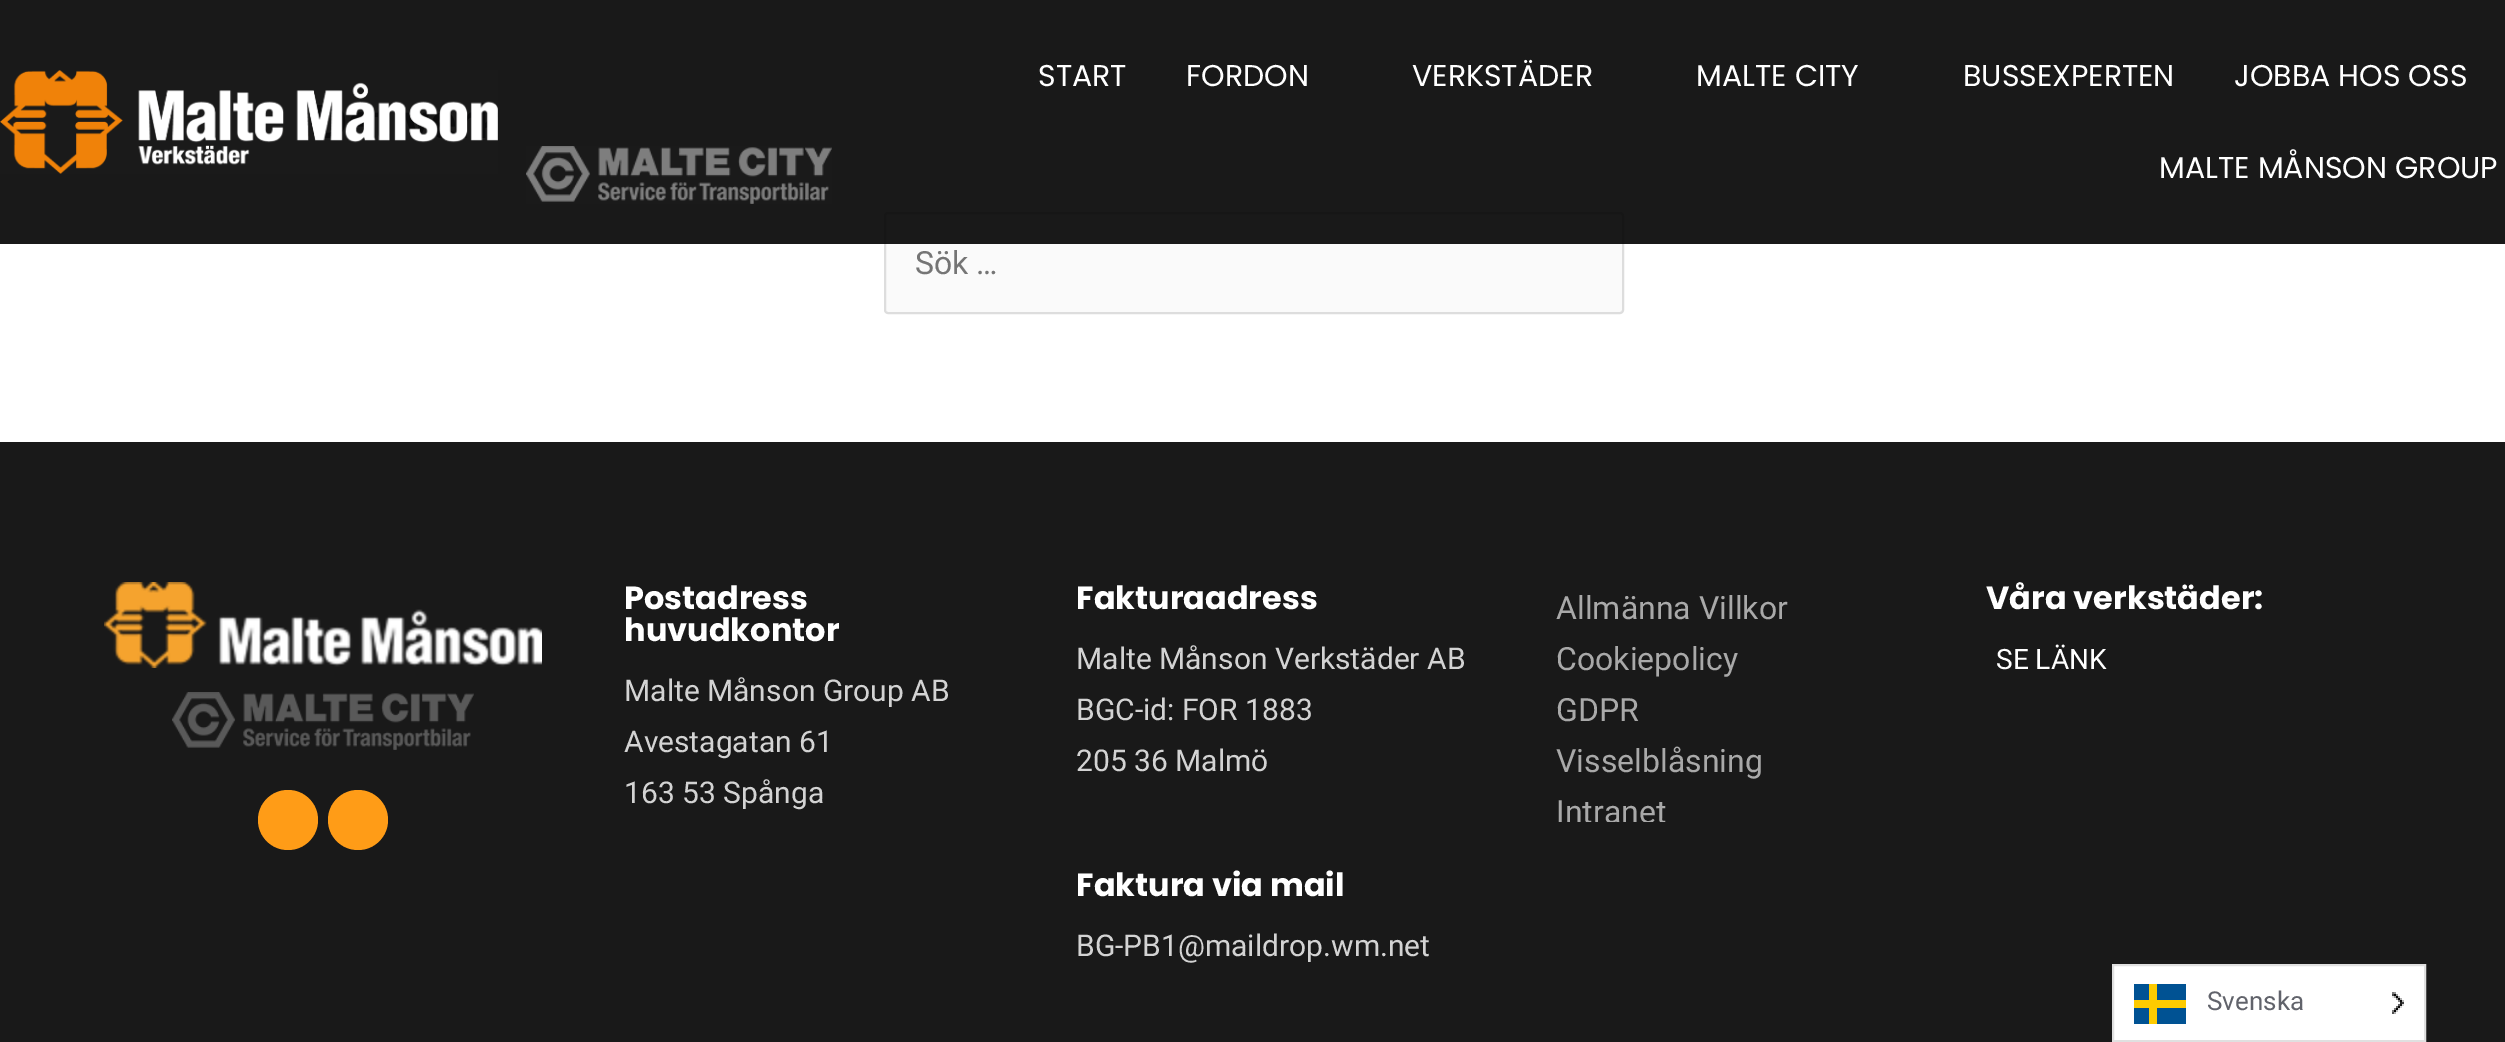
%!PS
<< /PageSize [2505 1042] /PageUsesTransparency true >> setpagedevice
/rgb { dup -16 bitshift 255 div exch dup -8 bitshift 255 and 255 div exch 255 and 255 div setrgbcolor } def
/font { [ exch dup neg 0 0 3 -1 roll 0 0 ] selectfont } def
/text { moveto show } def
/alpha { dup .setfillconstantalpha .setstrokeconstantalpha } def
/circle { newpath 0 360 arc closepath } def
/roundrect { 5 dict begin { /r /h /w /y /x } { exch def } forall
  x r add y moveto x w add y 2 copy h add r arct x w add y h add x 1 index r arct
  x y h add x y r arct x y 2 copy exch w add exch r arct closepath end } def
/picture { 5 dict begin { /h /w /y /x /name } { exch def } forall
  gsave x y translate w h scale
  w h 8 [w 0 0 h 0 0] name (r) file false 3 colorimage grestore end } def
0 .pushpdf14devicefilter
0 1042 translate 1 -1 scale
4 setmiterlimit
/s1 { /Poppins-Regular 30 font 16#FFFFFF rgb } def
/s2 { /Roboto-Regular 32 font 16#757575 rgb } def
/s3 { /Poppins-Bold 32 font 16#FFFFFF rgb } def
/s4 { /Roboto-Regular 30 font 16#D3D3D3 rgb } def
/s5 { /Roboto-Regular 32 font 16#A9A9A9 rgb } def
/s6 { /Roboto-Regular 28 font 16#FFFFFF rgb } def
/s7 { /Roboto-Regular 26 font 16#61636B rgb } def
16#FFFFFF rgb
0 0 2505 1042 rectfill
16#FAFAFA rgb
885 213 738 100 3 roundrect gsave fill grestore
16#DDDDDD rgb
2 setlinewidth
stroke
0.9 alpha
16#000000 rgb
0 0 2505 244 rectfill
1 alpha
(pic1.raw) 0 70 498 104 picture
(pic2.raw) 526 146 306 58 picture
s1
(START) 1038 86 text
(FORDON) 1186 86 text
(VERKSTÄDER) 1412 86 text
(MALTE CITY) 1696 86 text
(BUSSEXPERTEN) 1963 86 text
(JOBBA HOS OSS) 2234 86 text
(MALTE MÅNSON GROUP) 2159 178 text
s2
(Sök …) 915 274 text
16#191919 rgb
0 442 2505 600 rectfill
(pic3.raw) 104 582 438 86 picture
(pic4.raw) 172 692 302 58 picture
16#FF9C17 rgb
288 820 30 circle fill
358 820 30 circle fill
s3
(Postadress) 624 609 text
(huvudkontor) 624 641 text
s4
(Malte Månson Group AB) 624 701 text
(Avestagatan 61) 624 752 text
(163 53 Spånga) 624 803 text
s3
(Fakturaadress) 1076 609 text
s4
(Malte Månson Verkstäder AB) 1076 669 text
(BGC-id: FOR 1883) 1076 720 text
(205 36 Malmö) 1076 771 text
s3
(Faktura via mail) 1076 896 text
s4
(BG-PB1@maildrop.wm.net) 1076 956 text
s5
(Allmänna Villkor) 1556 619 text
(Cookiepolicy) 1556 670 text
(GDPR) 1556 721 text
(Visselblåsning) 1556 772 text
gsave
1556 582 350 240 rectclip
(Intranet) 1556 823 text
grestore
s3
(Våra verkstäder:) 1986 609 text
s6
(SE LÄNK) 1996 669 text
2113 965 moveto 2425 965 lineto 2425 1041 lineto 2113 1041 lineto closepath gsave fill grestore
16#E0E0E0 rgb
stroke
16#005293 rgb
2134 984 52 40 rectfill
gsave
2134 984 52 40 rectclip
16#FECB00 rgb
2149 984 moveto 2149 1000 lineto 2134 1000 lineto 2134 1008 lineto 2149 1008 lineto 2149 1024 lineto 2157 1024 lineto 2157 1008 lineto 2187 1008 lineto 2187 1000 lineto 2157 1000 lineto 2157 984 lineto closepath fill
grestore
s7
(Svenska) 2207 1010 text
(pic5.raw) 2392 992 12 22 picture
.poppdf14devicefilter showpage
